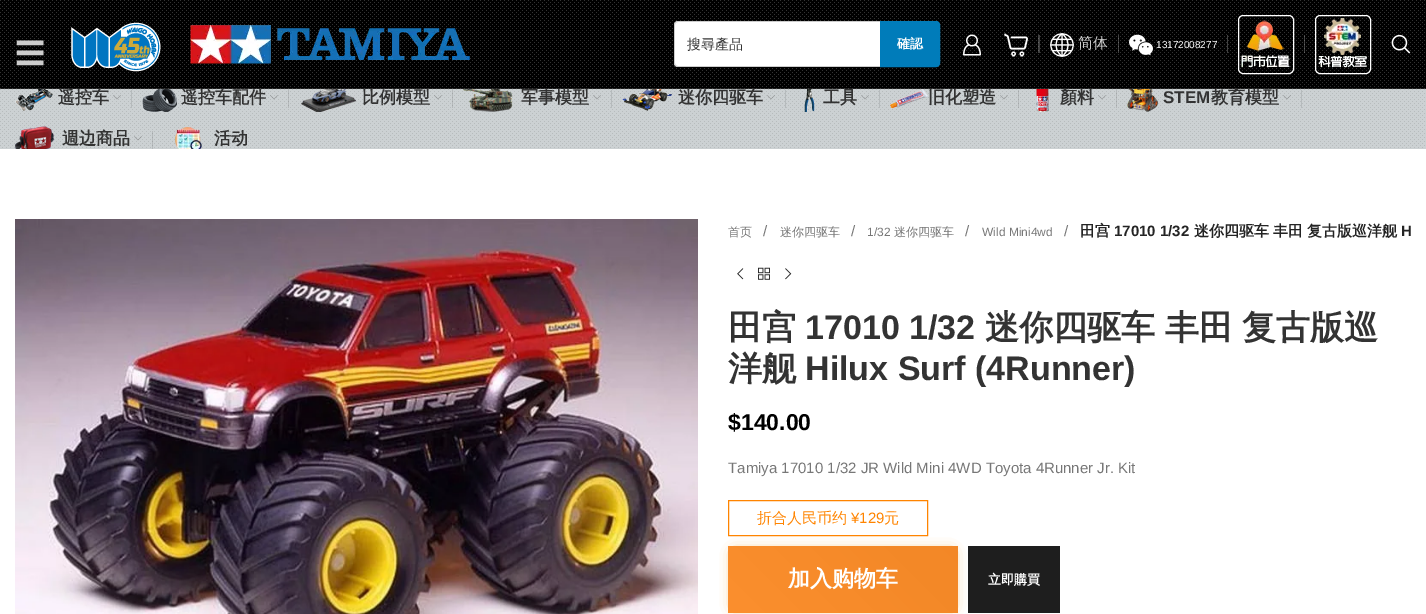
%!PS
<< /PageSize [1426 614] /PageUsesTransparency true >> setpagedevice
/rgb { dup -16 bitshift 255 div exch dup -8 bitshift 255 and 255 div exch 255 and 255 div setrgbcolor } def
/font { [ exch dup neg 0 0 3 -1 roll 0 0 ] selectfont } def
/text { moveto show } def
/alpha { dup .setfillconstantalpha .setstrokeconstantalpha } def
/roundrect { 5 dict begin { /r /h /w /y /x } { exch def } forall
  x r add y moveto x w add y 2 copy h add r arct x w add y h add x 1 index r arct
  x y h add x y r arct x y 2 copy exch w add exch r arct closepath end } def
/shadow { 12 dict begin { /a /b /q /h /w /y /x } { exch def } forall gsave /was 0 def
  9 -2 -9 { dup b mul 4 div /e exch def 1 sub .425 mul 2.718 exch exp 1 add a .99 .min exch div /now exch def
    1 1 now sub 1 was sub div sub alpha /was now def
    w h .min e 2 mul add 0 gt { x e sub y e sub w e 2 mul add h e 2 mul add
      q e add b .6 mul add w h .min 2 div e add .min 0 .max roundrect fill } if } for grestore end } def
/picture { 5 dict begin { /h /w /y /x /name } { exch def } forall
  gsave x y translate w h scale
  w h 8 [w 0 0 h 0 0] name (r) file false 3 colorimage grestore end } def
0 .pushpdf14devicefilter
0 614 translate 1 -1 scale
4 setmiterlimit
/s1 { /WenQuanYiZenHei-Medium 30 font 16#CCCCCC rgb } def
/s2 { /WenQuanYiZenHei-Medium 14 font 16#333333 rgb } def
/s3 { /WenQuanYiZenHei-Bold 13 font 16#FFFFFF rgb } def
/s4 { /WenQuanYiZenHei-Medium 15 font 16#CCCCCC rgb } def
/s5 { /LiberationSans-Regular 10 font 16#FFFFFF rgb } def
/s6 { /WenQuanYiZenHei-Bold 17 font 16#333333 rgb } def
/s7 { /LiberationSans-Bold 17 font 16#333333 rgb } def
/s8 { /WenQuanYiZenHei-Medium 12 font 16#777777 rgb } def
/s9 { /LiberationSans-Regular 15 font 16#777777 rgb } def
/s10 { /LiberationSans-Regular 12 font 16#777777 rgb } def
/s11 { /WenQuanYiZenHei-Bold 15 font 16#242424 rgb } def
/s12 { /LiberationSans-Bold 15 font 16#242424 rgb } def
/s13 { /WenQuanYiZenHei-Bold 34 font 16#333333 rgb } def
/s14 { /LiberationSans-Bold 34 font 16#333333 rgb } def
/s15 { /LiberationSans-Bold 23 font 16#000000 rgb } def
/s16 { /WenQuanYiZenHei-Medium 15 font 16#FF8400 rgb } def
/s17 { /LiberationSans-Regular 15 font 16#FF8400 rgb } def
/s18 { /WenQuanYiZenHei-Bold 22 font 16#FFFFFF rgb } def
16#FFFFFF rgb
0 0 1426 614 rectfill
(pic1.raw) 0 0 1426 89 picture
0.2 alpha
16#818181 rgb
0 88 1426 1 rectfill
1 alpha
s1
(☰) 15 64 text
(pic2.raw) 71 22 90 50 picture
(pic3.raw) 190 25 280 39 picture
16#FFFFFF rgb
678 21 moveto 880 21 lineto 880 67 lineto 678 67 lineto 676 67 674 65 674 63 curveto 674 25 lineto 674 23 676 21 678 21 curveto closepath fill
16#CCCCCC rgb
678 21 moveto 880 21 lineto 880 67 lineto 678 67 lineto 676 67 674 65 674 63 curveto 674 25 lineto 674 23 676 21 678 21 curveto closepath 678 22 moveto 880 22 lineto 880 66 lineto 678 66 lineto 676 66 675 65 675 63 curveto 675 25 lineto 675 23 676 22 678 22 curveto closepath eofill
s2
(搜尋產品) 687 49 text
16#007CBA rgb
880.5 21.5 moveto 936 21.5 lineto 938 21.5 939.5 23 939.5 25 curveto 939.5 63 lineto 939.5 65 938 66.5 936 66.5 curveto 880.5 66.5 lineto closepath gsave fill grestore
stroke
s3
(確認) 897 48 text
(pic4.raw) 963 34 18 22 picture
(pic5.raw) 1004 33 24 24 picture
0.25 alpha
1038 35 1 18 rectfill
1 alpha
16#404040 rgb
1039 35 1 18 rectfill
(pic6.raw) 1050 33 24 24 picture
s4
(简体) 1078 48 text
0.25 alpha
16#FFFFFF rgb
1118 35 1 18 rectfill
1 alpha
(pic7.raw) 1129 34 24 22 picture
s5
(13172008277) 1156 48 text
16#404040 rgb
1227 35 1 18 rectfill
16#FFFFFF rgb
1238.5 15.5 55 58 4.5 roundrect stroke
(pic8.raw) 1241 20 49 48 picture
0.25 alpha
1304 35 1 18 rectfill
1 alpha
1315.5 15.5 55 58 4.5 roundrect stroke
(pic9.raw) 1318 18 49 50 picture
(pic10.raw) 1391 34 20 20 picture
(pic11.raw) 0 89 1426 60 picture
(pic12.raw) 15 89 38 22 picture
s6
(遥控车) 58 103 text
(pic13.raw) 113 95 8 5 picture
16#B6BBBD rgb
131 90 1 18 rectfill
(pic14.raw) 142 89 35 23 picture
s6
(遥控车配件) 181 103 text
(pic15.raw) 270 95 8 5 picture
0.11 alpha
16#000000 rgb
288 90 1 18 rectfill
1 alpha
(pic16.raw) 301 89 55 23 picture
s6
(比例模型) 362 103 text
(pic15.raw) 434 95 8 5 picture
0.11 alpha
16#000000 rgb
452 90 1 18 rectfill
1 alpha
(pic17.raw) 463 89 50 23 picture
s6
(军事模型) 521 103 text
(pic13.raw) 593 95 8 5 picture
16#B6BBBD rgb
611 90 1 18 rectfill
(pic18.raw) 622 89 50 22 picture
s6
(迷你四驱车) 678 103 text
(pic19.raw) 767 95 8 5 picture
16#B6BBBD rgb
785 90 1 18 rectfill
(pic20.raw) 804 89 11 23 picture
s6
(工具) 823 103 text
(pic13.raw) 861 95 8 5 picture
16#B6BBBD rgb
879 90 1 18 rectfill
(pic21.raw) 890 89 38 20 picture
s6
(旧化塑造) 928 103 text
(pic22.raw) 1000 95 8 5 picture
0.11 alpha
16#000000 rgb
1018 90 1 18 rectfill
1 alpha
(pic23.raw) 1036 89 13 23 picture
s6
(顏料) 1060 103 text
(pic15.raw) 1098 95 8 5 picture
0.11 alpha
16#000000 rgb
1116 90 1 18 rectfill
1 alpha
(pic24.raw) 1127 89 31 23 picture
s7
(STEM) 1163 103 text
s6
(教育模型) 1211 103 text
(pic19.raw) 1283 95 8 5 picture
16#B6BBBD rgb
1301 90 1 18 rectfill
(pic25.raw) 15 126 39 23 picture
s6
(週边商品) 62 144 text
(pic26.raw) 134 136 8 5 picture
0.11 alpha
16#000000 rgb
152 131 1 18 rectfill
1 alpha
(pic27.raw) 175 127 27 22 picture
s6
(活动) 214 144 text
(pic28.raw) 15 219 683 395 picture
s8
(首页) 728 236 text
s9
(/) 763 236 text
s8
(迷你四驱车) 780 236 text
s9
(/) 851 236 text
s10
(1/32) 867 236 text
s8
(迷你四驱车) 894 236 text
s9
(/) 965 236 text
s10
(Wild Mini4wd) 982 236 text
s9
(/) 1064 236 text
s11
(田宫) 1080 236 text
s12
(17010 1/32) 1114 236 text
s11
(迷你四驱车) 1194 236 text
(丰田) 1273 236 text
(复古版巡洋舰) 1307 236 text
s12
(H) 1401 236 text
(pic29.raw) 737 268 7 12 picture
(pic30.raw) 758 267 12 13 picture
(pic31.raw) 785 268 7 12 picture
s13
(田宫) 728 339 text
s14
(17010 1/32) 805 339 text
s13
(迷你四驱车) 985 339 text
(丰田) 1165 339 text
(复古版巡) 1242 339 text
(洋舰) 728 380 text
s14
(Hilux Surf \(4Runner\)) 805 380 text
s15
($140.00) 728 430 text
s9
(Tamiya 17010 1/32 JR Wild Mini 4WD Toyota 4Runner Jr. Kit) 728 473 text
16#FF8400 rgb
728.5 500.5 199 35 rectstroke
s16
(折合人民币约) 757 523 text
s17
(¥129) 851 523 text
s16
(元) 884 523 text
16#F09819 rgb
735 553 216 53 0 7 1 shadow
gsave 728 546 230 67 3 roundrect clip newpath
<< /ShadingType 2 /ColorSpace /DeviceRGB /Coords [826 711 1090 448] /Extend [true true] /Function << /FunctionType 3 /Domain [0 1] /Functions [<< /FunctionType 2 /Domain [0 1] /C0 [0.984 0.561 0.18] /C1 [0.953 0.533 0.153] /N 1 >> << /FunctionType 2 /Domain [0 1] /C0 [0.953 0.533 0.153] /C1 [0.949 0.502 0.102] /N 1 >>] /Bounds [0.51] /Encode [0 1 0 1] >> >> shfill grestore
s18
(加入购物车) 788 586 text
16#1E1E1E rgb
968 546 92 67 rectfill
s3
(立即購買) 988 584 text
.poppdf14devicefilter showpage
